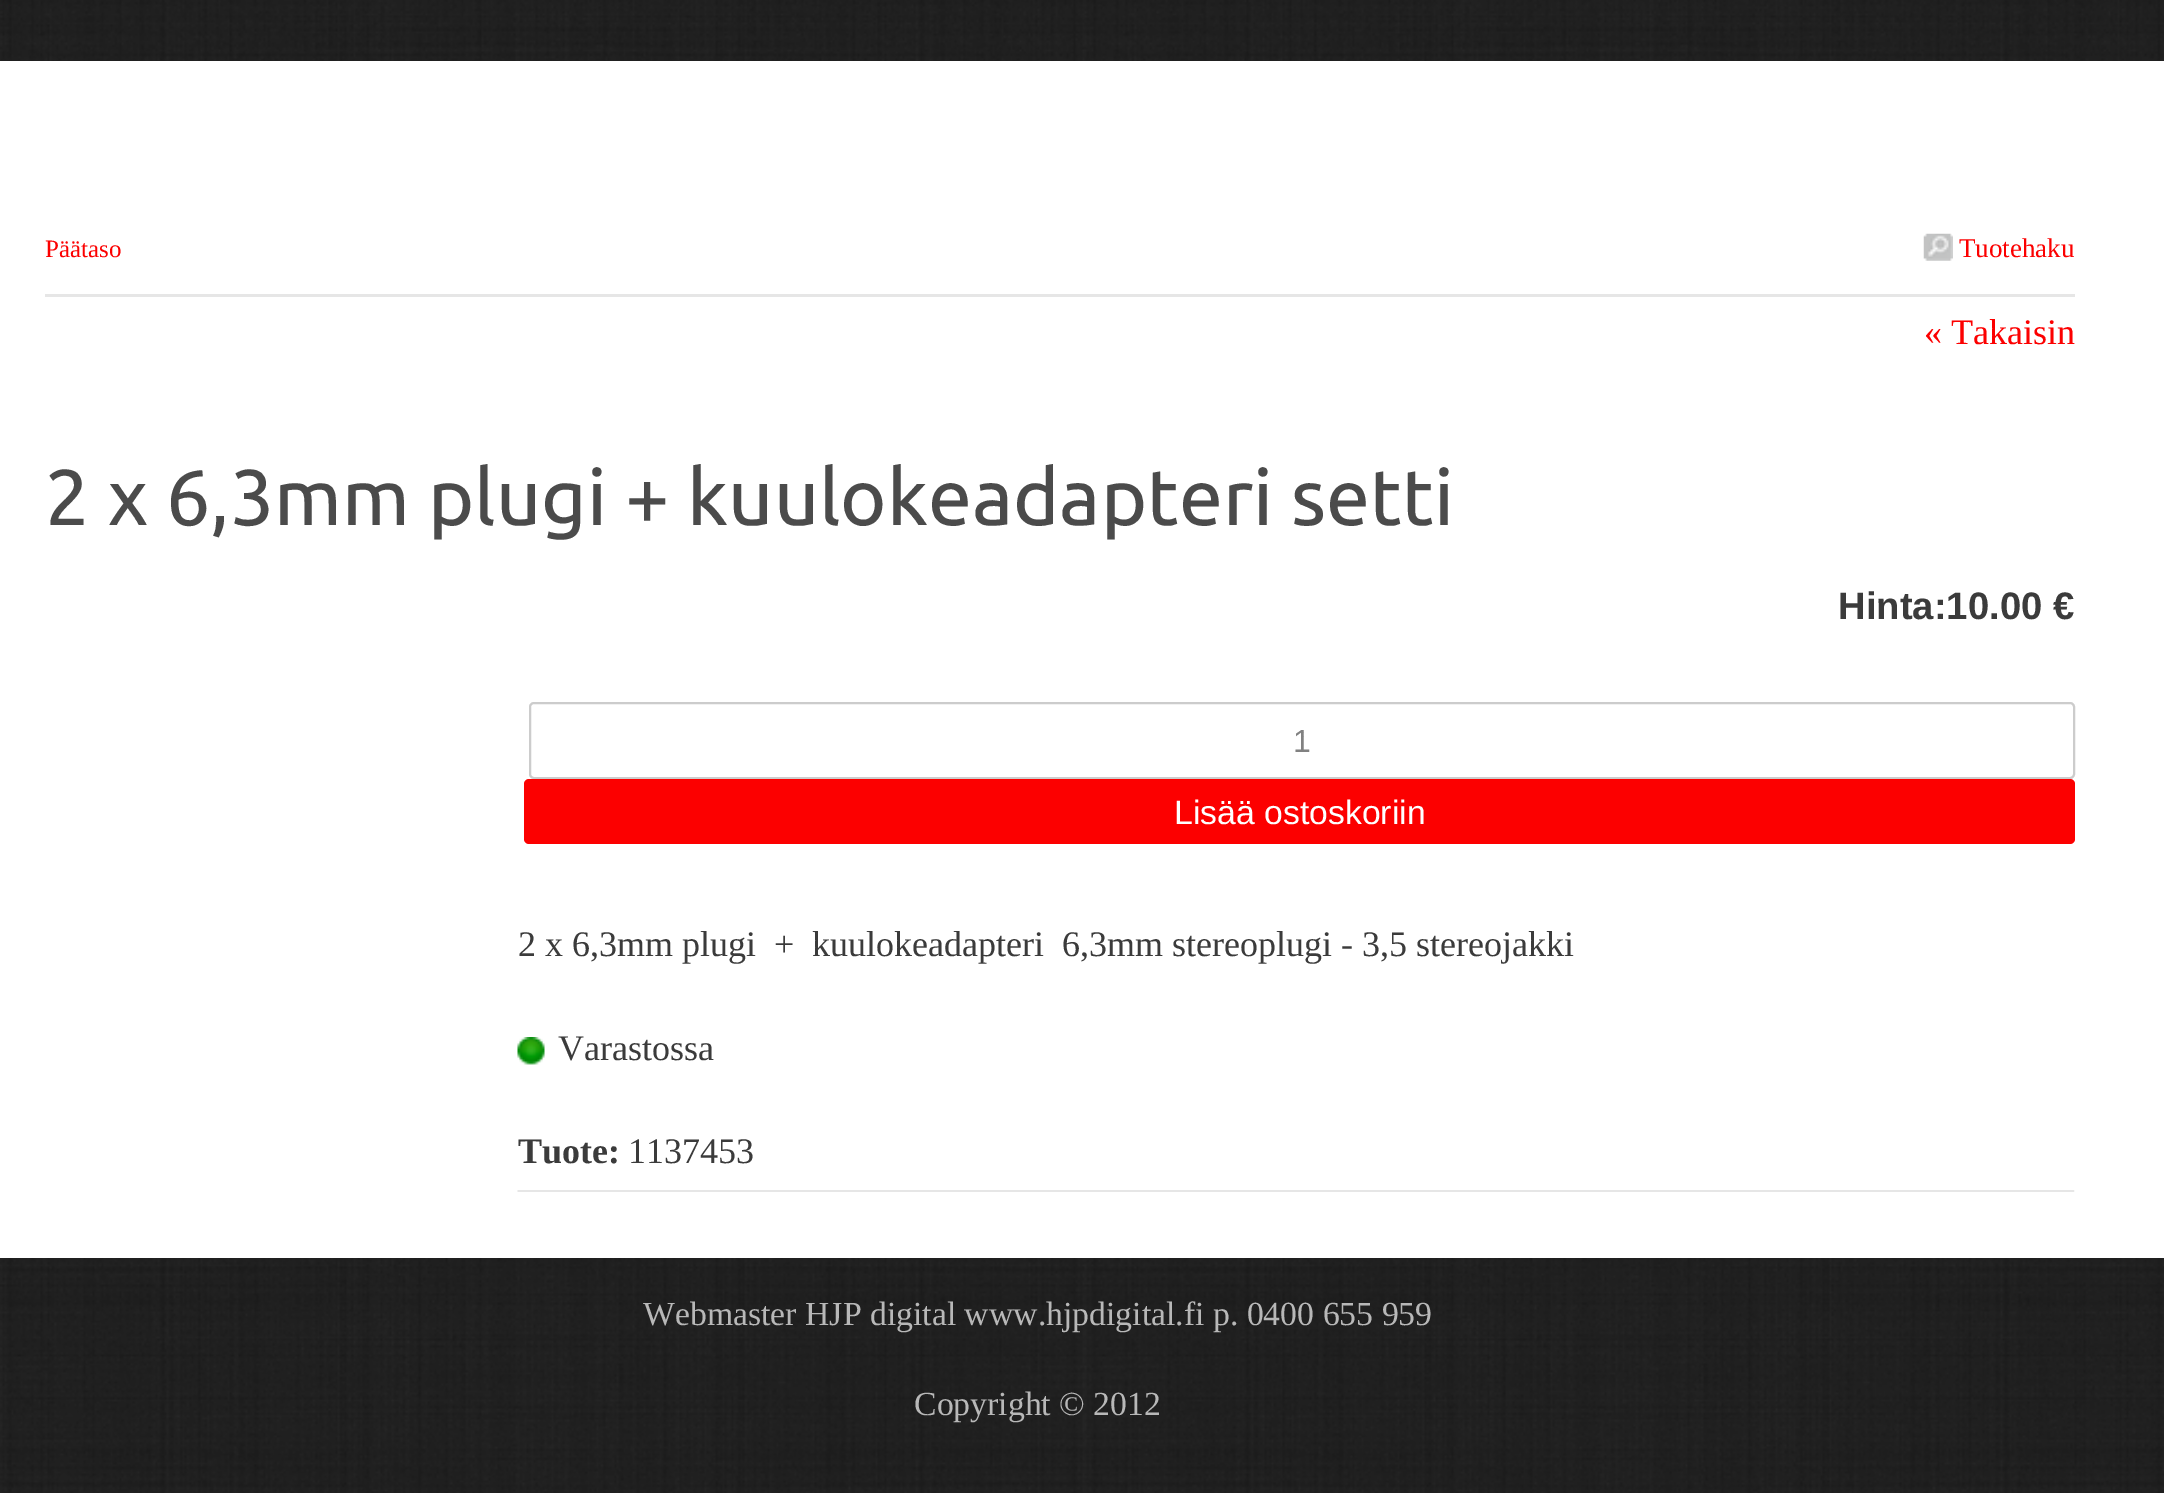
%!PS
<< /PageSize [2164 1493] >> setpagedevice
/rgb { dup -16 bitshift 255 div exch dup -8 bitshift 255 and 255 div exch 255 and 255 div setrgbcolor } def
/font { [ exch dup neg 0 0 3 -1 roll 0 0 ] selectfont } def
/text { moveto show } def
/roundrect { 5 dict begin { /r /h /w /y /x } { exch def } forall
  x r add y moveto x w add y 2 copy h add r arct x w add y h add x 1 index r arct
  x y h add x y r arct x y 2 copy exch w add exch r arct closepath end } def
/picture { 5 dict begin { /h /w /y /x /name } { exch def } forall
  gsave x y translate w h scale
  w h 8 [w 0 0 h 0 0] name (r) file false 3 colorimage grestore end } def
0 1493 translate 1 -1 scale
4 setmiterlimit
/s1 { /LiberationSerif-Regular 25 font 16#FC0000 rgb } def
/s2 { /LiberationSerif-Regular 27 font 16#FC0000 rgb } def
/s3 { /LiberationSerif-Regular 36 font 16#FC0000 rgb } def
/s4 { /Ubuntu-Regular 78.75 font 16#4B4B4B rgb } def
/s5 { /LiberationSans-Bold 38.25 font 16#3B3B3B rgb } def
/s6 { /LiberationSans-Regular 32 font 16#818181 rgb } def
/s7 { /LiberationSans-Regular 33.75 font 16#FFFFFF rgb } def
/s8 { /LiberationSerif-Regular 36 font 16#3B3B3B rgb } def
/s9 { /LiberationSerif-Bold 36 font 16#3B3B3B rgb } def
/s10 { /LiberationSerif-Regular 33.75 font 16#B8B8B8 rgb } def
16#FFFFFF rgb
0 0 2164 1493 rectfill
(pic1.raw) 0 0 2164 1493 picture
0 61 2164 1197 rectfill
s1
(Päätaso) 45 257 text
(pic2.raw) 1923 233 30 28 picture
s2
(Tuotehaku) 1959 257 text
16#E6E6E6 rgb
45 294 2030 3 rectfill
s3
(« Takaisin) 1924 344 text
s4
(2 x 6,3mm plugi + kuulokeadapteri setti) 45 525 text
s5
(Hinta:10.00 €) 1838 619 text
16#CCCCCC rgb
2 setlinewidth
530 703 1544 75 4 roundrect stroke
s6
(1) 1293 752 text
16#FC0000 rgb
524 779 1551 65 5 roundrect fill
s7
(Lisää ostoskoriin) 1174 824 text
s8
(2 x 6,3mm plugi  +  kuulokeadapteri  6,3mm stereoplugi - 3,5 stereojakki) 518 956 text
(pic3.raw) 517 1037 28 28 picture
(Varastossa) 558 1060 text
s9
(Tuote:) 518 1163 text
s8
(1137453) 628 1163 text
(pic4.raw) 517 1190 1558 2 picture
s10
(Webmaster HJP digital www.hjpdigital.fi p. 0400 655 959) 643 1325 text
(Copyright © 2012) 914 1415 text
showpage
